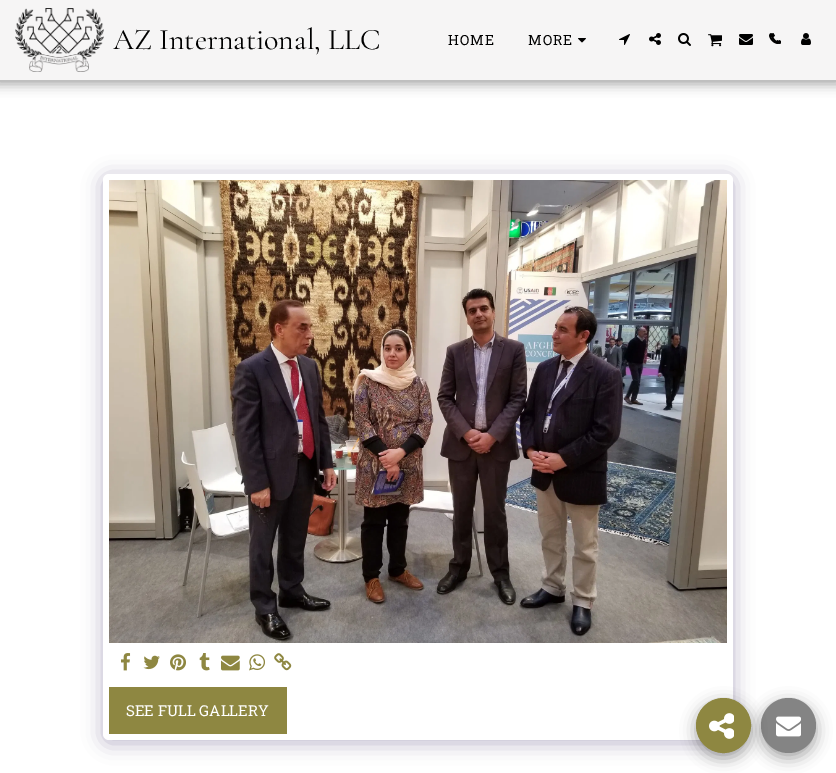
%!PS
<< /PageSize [836 773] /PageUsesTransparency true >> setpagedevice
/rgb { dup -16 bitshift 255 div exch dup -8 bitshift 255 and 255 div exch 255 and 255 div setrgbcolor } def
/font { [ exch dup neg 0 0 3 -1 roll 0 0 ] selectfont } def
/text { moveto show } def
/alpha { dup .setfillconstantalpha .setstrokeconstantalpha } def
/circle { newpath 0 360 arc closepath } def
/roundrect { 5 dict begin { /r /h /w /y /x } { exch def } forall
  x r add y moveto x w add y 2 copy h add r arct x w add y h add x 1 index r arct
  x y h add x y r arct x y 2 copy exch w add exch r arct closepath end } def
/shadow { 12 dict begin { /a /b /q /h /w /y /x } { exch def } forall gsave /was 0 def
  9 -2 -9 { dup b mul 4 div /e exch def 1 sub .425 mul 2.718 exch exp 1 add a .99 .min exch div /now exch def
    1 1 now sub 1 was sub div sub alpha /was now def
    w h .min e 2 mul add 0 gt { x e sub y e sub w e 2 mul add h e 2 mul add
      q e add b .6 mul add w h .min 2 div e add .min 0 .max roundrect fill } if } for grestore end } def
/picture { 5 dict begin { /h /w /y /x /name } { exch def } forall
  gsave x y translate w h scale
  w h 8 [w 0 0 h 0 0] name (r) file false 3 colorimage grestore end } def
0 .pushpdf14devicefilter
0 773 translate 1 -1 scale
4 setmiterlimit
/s1 { /CormorantGaramond-Regular 30 font 16#000000 rgb } def
/s2 { /RobotoSlab-Regular 15 font 16#FFFFFF rgb } def
16#FFFFFF rgb
0 0 836 773 rectfill
16#000000 rgb
-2 0 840 84 0 6 0.35 shadow
16#F6F5F5 rgb
0 0 836 80 rectfill
(pic1.raw) 15 8 89 64 picture
s1
(AZ International, LLC) 113 49 text
/RobotoSlab-Regular 14 font
448 45 moveto 1 0 (HOME) ashow
528 45 moveto 1 0 (MORE) ashow
(pic2.raw) 578 38 8 5 picture
(pic3.raw) 619 34 11 11 picture
(pic4.raw) 649 33 12 12 picture
(pic5.raw) 678 33 13 13 picture
(pic6.raw) 708 34 14 13 picture
(pic7.raw) 739 34 14 11 picture
(pic8.raw) 771 33 10 11 picture
(pic9.raw) 769 33 10 11 picture
(pic10.raw) 801 33 10 12 picture
16#4D3F7A rgb
103 177 630 566 6 10 0.4 shadow
16#FFFFFF rgb
103 174 630 566 6 roundrect fill
(pic11.raw) 109 180 618 463 picture
(pic12.raw) 121 653 10 18 picture
(pic13.raw) 143 655 17 15 picture
(pic14.raw) 170 654 16 17 picture
(pic15.raw) 199 653 11 18 picture
(pic16.raw) 221 655 19 16 picture
(pic17.raw) 249 654 16 17 picture
(pic18.raw) 274 653 18 18 picture
16#8E8741 rgb
109 687 178 47 rectfill
s2
(SEE FULL GALLERY) 126 716 text
16#000000 rgb
761 703 55 55 27.5 7.5 0.35 shadow
16#848484 rgb
788.5 725.5 27.5 circle fill
16#000000 rgb
696 703 55 55 27.5 7.5 0.35 shadow
16#8E8741 rgb
723.5 725.5 27 circle gsave fill grestore
stroke
(pic19.raw) 709 713 25 26 picture
(pic20.raw) 776 716 25 21 picture
.poppdf14devicefilter showpage
